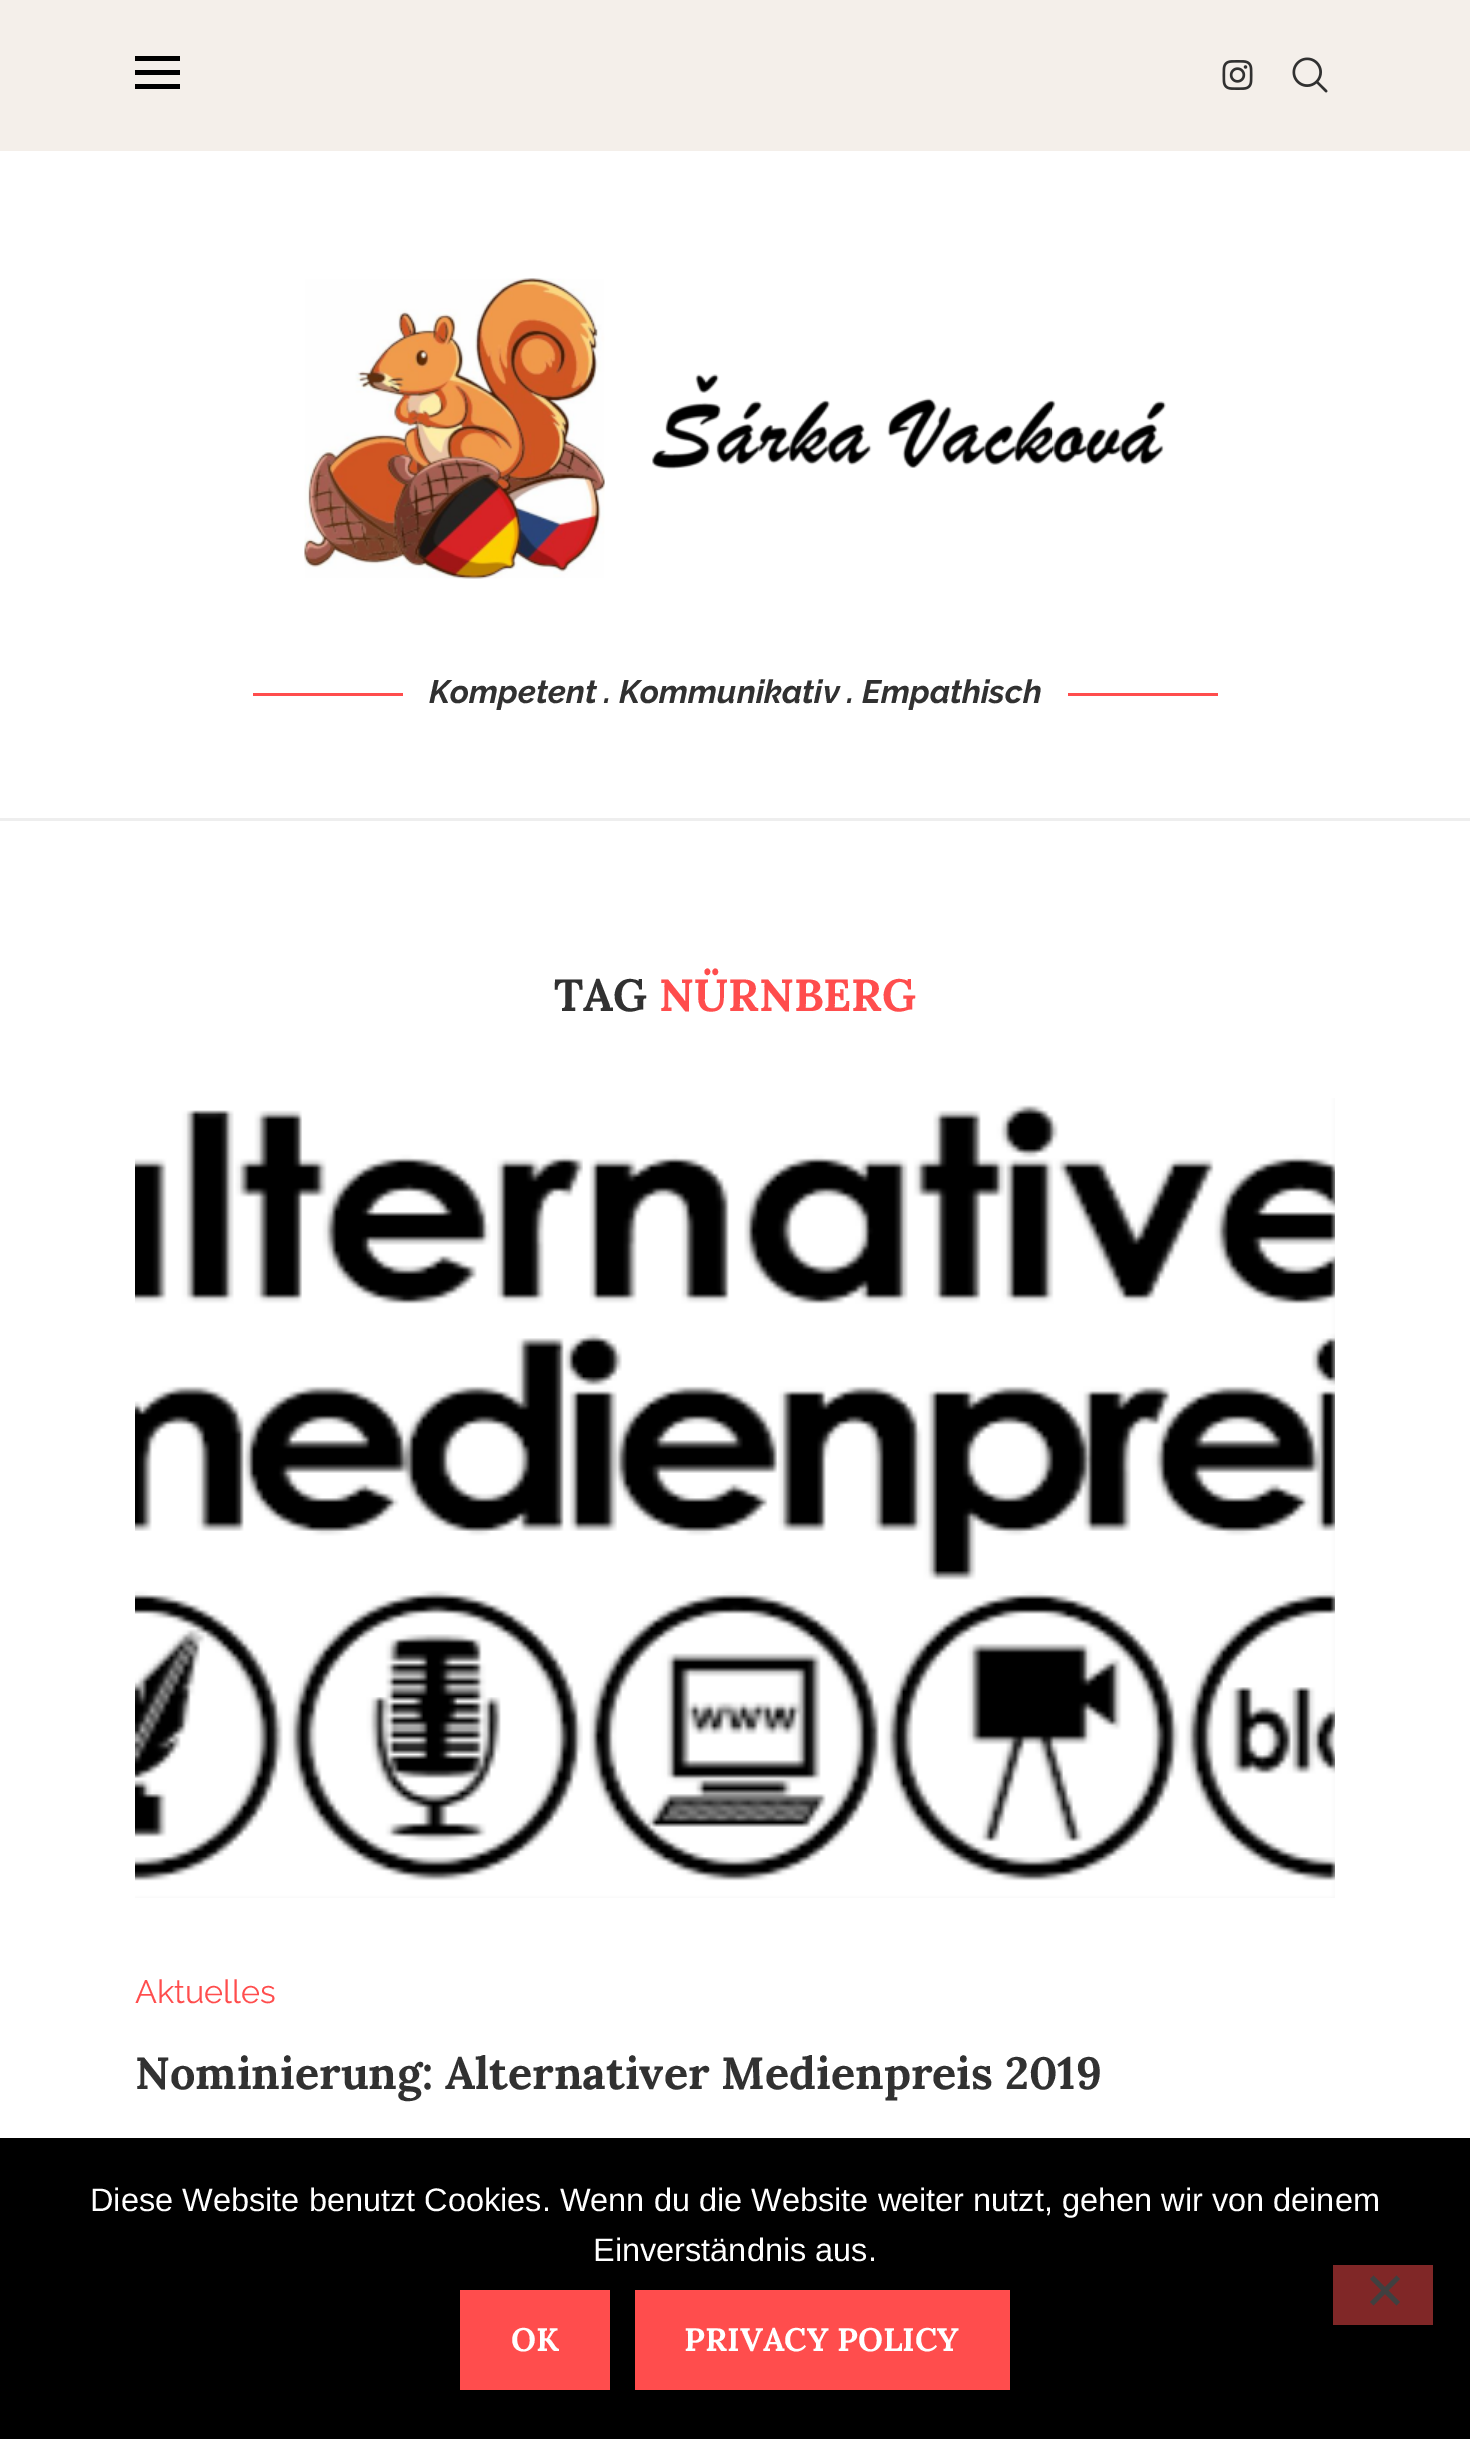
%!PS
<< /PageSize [1470 2439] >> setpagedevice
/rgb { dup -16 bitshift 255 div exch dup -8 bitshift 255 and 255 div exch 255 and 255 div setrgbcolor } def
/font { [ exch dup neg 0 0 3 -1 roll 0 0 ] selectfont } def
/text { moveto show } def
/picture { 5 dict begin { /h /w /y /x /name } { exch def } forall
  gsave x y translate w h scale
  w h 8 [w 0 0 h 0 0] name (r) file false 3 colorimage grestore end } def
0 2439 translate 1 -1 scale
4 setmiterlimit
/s1 { /Raleway-BoldItalic 32.5 font 16#313131 rgb } def
/s2 { /Lora-Bold 45 font 16#313131 rgb } def
/s3 { /Lora-Bold 45 font 16#FF4D4D rgb } def
/s4 { /Raleway-Regular 32.5 font 16#FF4D4D rgb } def
/s5 { /LiberationSans-Regular 32.5 font 16#FFFFFF rgb } def
/s6 { /Lora-Bold 32.5 font 16#FFFFFF rgb } def
16#FFFFFF rgb
0 0 1470 2439 rectfill
16#F4EFEA rgb
0 0 1470 151 rectfill
16#000000 rgb
135 56 45 5 rectfill
135 70 45 5 rectfill
135 84 45 5 rectfill
(pic1.raw) 1222 60 31 30 picture
(pic2.raw) 1292 57 36 36 picture
16#EEEEEE rgb
0 818 1470 3 rectfill
(pic3.raw) 304 278 862 301 picture
16#FF4D4D rgb
253 693 150 3 rectfill
s1
(Kompetent . Kommunikativ . Empathisch) 429 703 text
16#FF4D4D rgb
1068 693 150 3 rectfill
s2
(TAG) 554 1011 text
s3
(NÜRNBERG) 659 1011 text
16#F5F5F5 rgb
135 1098 1200 800 rectfill
(pic4.raw) 135 1098 1200 800 picture
s4
(Aktuelles) 135 2003 text
s2
(Nominierung: Alternativer Medienpreis 2019) 135 2089 text
16#000000 rgb
0 2138 1470 301 rectfill
s5
(Diese Website benutzt Cookies. Wenn du die Website weiter nutzt, gehen wir von deinem) 90 2211 text
(Einverständnis aus.) 593 2261 text
16#802727 rgb
1333 2265 100 60 rectfill
16#404040 rgb
1396.5 2275.5 moveto 1400 2279 lineto 1373.5 2305.5 lineto 1370 2302 lineto closepath fill
1370 2279 moveto 1373.5 2275.5 lineto 1400 2302 lineto 1396.5 2305.5 lineto closepath fill
16#FF4D4D rgb
460 2290 150 100 rectfill
s6
(OK) 511 2351 text
16#FF4D4D rgb
635 2290 375 100 rectfill
s6
(PRIVACY POLICY) 684 2351 text
showpage
